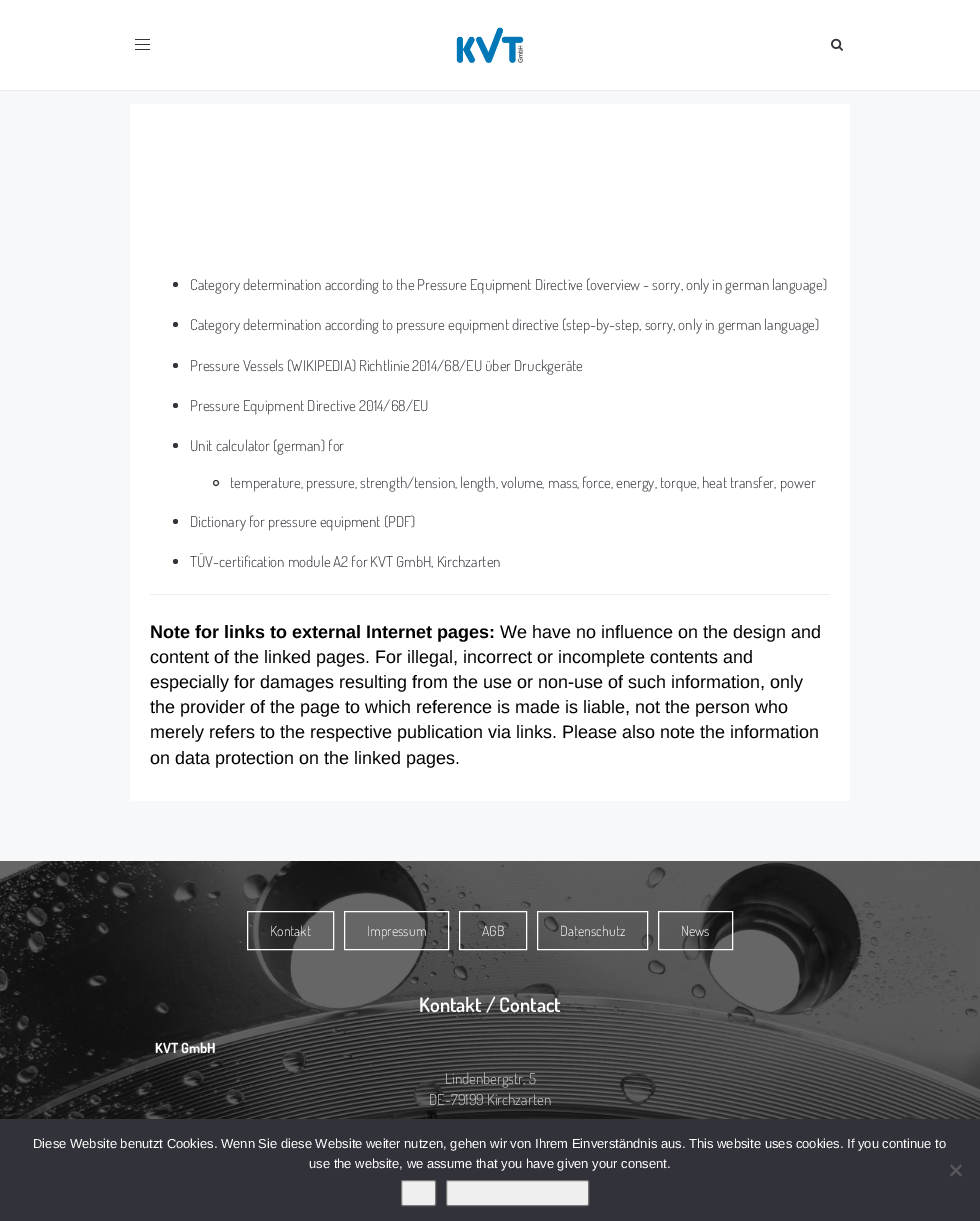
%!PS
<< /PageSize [980 1221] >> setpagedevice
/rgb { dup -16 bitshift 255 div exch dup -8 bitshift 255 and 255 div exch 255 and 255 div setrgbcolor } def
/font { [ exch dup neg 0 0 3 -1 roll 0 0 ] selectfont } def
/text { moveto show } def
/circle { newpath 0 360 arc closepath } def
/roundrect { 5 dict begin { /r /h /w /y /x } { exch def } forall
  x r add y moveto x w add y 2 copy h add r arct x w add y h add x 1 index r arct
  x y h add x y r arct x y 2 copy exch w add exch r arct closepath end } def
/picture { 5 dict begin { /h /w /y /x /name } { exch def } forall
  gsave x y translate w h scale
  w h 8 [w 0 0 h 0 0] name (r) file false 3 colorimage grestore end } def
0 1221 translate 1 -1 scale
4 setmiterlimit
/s1 { /Dosis-Light 15 font 16#34343C rgb } def
/s2 { /Dosis-Light 14 font 16#34343C rgb } def
/s3 { /LiberationSans-Bold 18 font 16#000000 rgb } def
/s4 { /LiberationSans-Regular 18 font 16#000000 rgb } def
/s5 { /Dosis-Light 14 font 16#FFFFFF rgb } def
/s6 { /Dosis-SemiBold 20 font 16#FFFFFF rgb } def
/s7 { /Dosis-Bold 14 font 16#FFFFFF rgb } def
/s8 { /Dosis-Light 15 font 16#CFCFCF rgb } def
/s9 { /LiberationSans-Regular 13 font 16#FFFFFF rgb } def
16#F7F8FA rgb
0 0 980 1221 rectfill
16#FFFFFF rgb
0 0 980 90 rectfill
16#E8E8EC rgb
0 90 980 1 rectfill
16#34343C rgb
135 49 15 1 rectfill
135 39 15 1 rectfill
135 44 15 1 rectfill
(pic1.raw) 456 27 68 36 picture
(pic2.raw) 831 38 12 13 picture
16#FFFFFF rgb
130 104 720 697 rectfill
16#34343C rgb
175.5 284.5 2.5 circle fill
s1
(Category determination according to the Pressure Equipment Directive \(overview - sorry, only in german language\)) 190 290 text
175.5 324.5 2.5 circle fill
(Category determination according to pressure equipment directive \(step-by-step, sorry, only in german language\)) 190 330 text
175.5 365.5 2.5 circle fill
(Pressure Vessels \(WIKIPEDIA\) Richtlinie 2014/68/EU über Druckgeräte) 190 371 text
175.5 405.5 2.5 circle fill
(Pressure Equipment Directive 2014/68/EU) 190 411 text
175.5 445.5 2.5 circle fill
(Unit calculator \(german\) for) 190 451 text
216 483 2.5 circle stroke
(temperature) 230 488 text
s2
(,) 301 488 text
s1
(pressure) 306 488 text
s2
(,) 355 488 text
s1
(strength/tension) 360 488 text
s2
(,) 455 488 text
s1
(length) 460 488 text
s2
(,) 496 488 text
s1
(volume) 501 488 text
s2
(,) 542 488 text
s1
(mass) 548 488 text
s2
(,) 577 488 text
s1
(force) 582 488 text
s2
(,) 611 488 text
s1
(energy) 616 488 text
s2
(,) 655 488 text
s1
(torque) 660 488 text
s2
(,) 697 488 text
s1
(heat transfer) 702 488 text
s2
(,) 774 488 text
s1
(power) 780 488 text
175.5 521.5 2.5 circle fill
(Dictionary for pressure equipment \(PDF\)) 190 527 text
175.5 561.5 2.5 circle fill
(TÜV-certification module A2 for KVT GmbH, Kirchzarten) 190 567 text
16#EEEEEE rgb
150 594 680 1 rectfill
s3
(Note for links to external Internet pages:) 150 638 text
s4
(We have no influence on the design and) 500 638 text
(content of the linked pages. For illegal, incorrect or incomplete contents and) 150 663 text
(especially for damages resulting from the use or non-use of such information, only) 150 688 text
(the provider of the page to which reference is made is liable, not the person who) 150 713 text
(merely refers to the respective publication via links. Please also note the information) 150 738 text
(on data protection on the linked pages.) 150 764 text
0 861 980 258 rectfill
(pic3.raw) 0 861 980 258 picture
16#FFFFFF rgb
247.5 911.5 86 38 rectstroke
s5
(Kontakt) 270 936 text
344.5 911.5 104 38 rectstroke
(Impressum) 367 936 text
459.5 911.5 67 38 rectstroke
(AGB) 482 936 text
537.5 911.5 110 38 rectstroke
(Datenschutz) 560 936 text
658.5 911.5 74 38 rectstroke
(News) 681 936 text
s6
(Kontakt / Contact) 419 1012 text
s7
(KVT GmbH) 155 1053 text
s8
(Lindenbergstr. 5) 445 1084 text
(DE-79199 Kirchzarten) 429 1105 text
16#32323A rgb
0 1119 980 102 rectfill
s9
(Diese Website benutzt Cookies. Wenn Sie diese Website weiter nutzen, gehen wir von Ihrem Einverständnis aus. This website uses cookies. If you continue to) 33 1148 text
(use the website, we assume that you have given your consent.) 309 1168 text
16#59595D rgb
960.5 1164.5 moveto 962 1166 lineto 951.5 1176.5 lineto 950 1175 lineto closepath fill
950 1166 moveto 951.5 1164.5 lineto 962 1175 lineto 960.5 1176.5 lineto closepath fill
16#EFEFEF rgb
401.5 1180.5 34 25 1.5 roundrect gsave fill grestore
16#767676 rgb
stroke
16#EFEFEF rgb
446.5 1180.5 142 25 1.5 roundrect gsave fill grestore
16#767676 rgb
stroke
showpage
